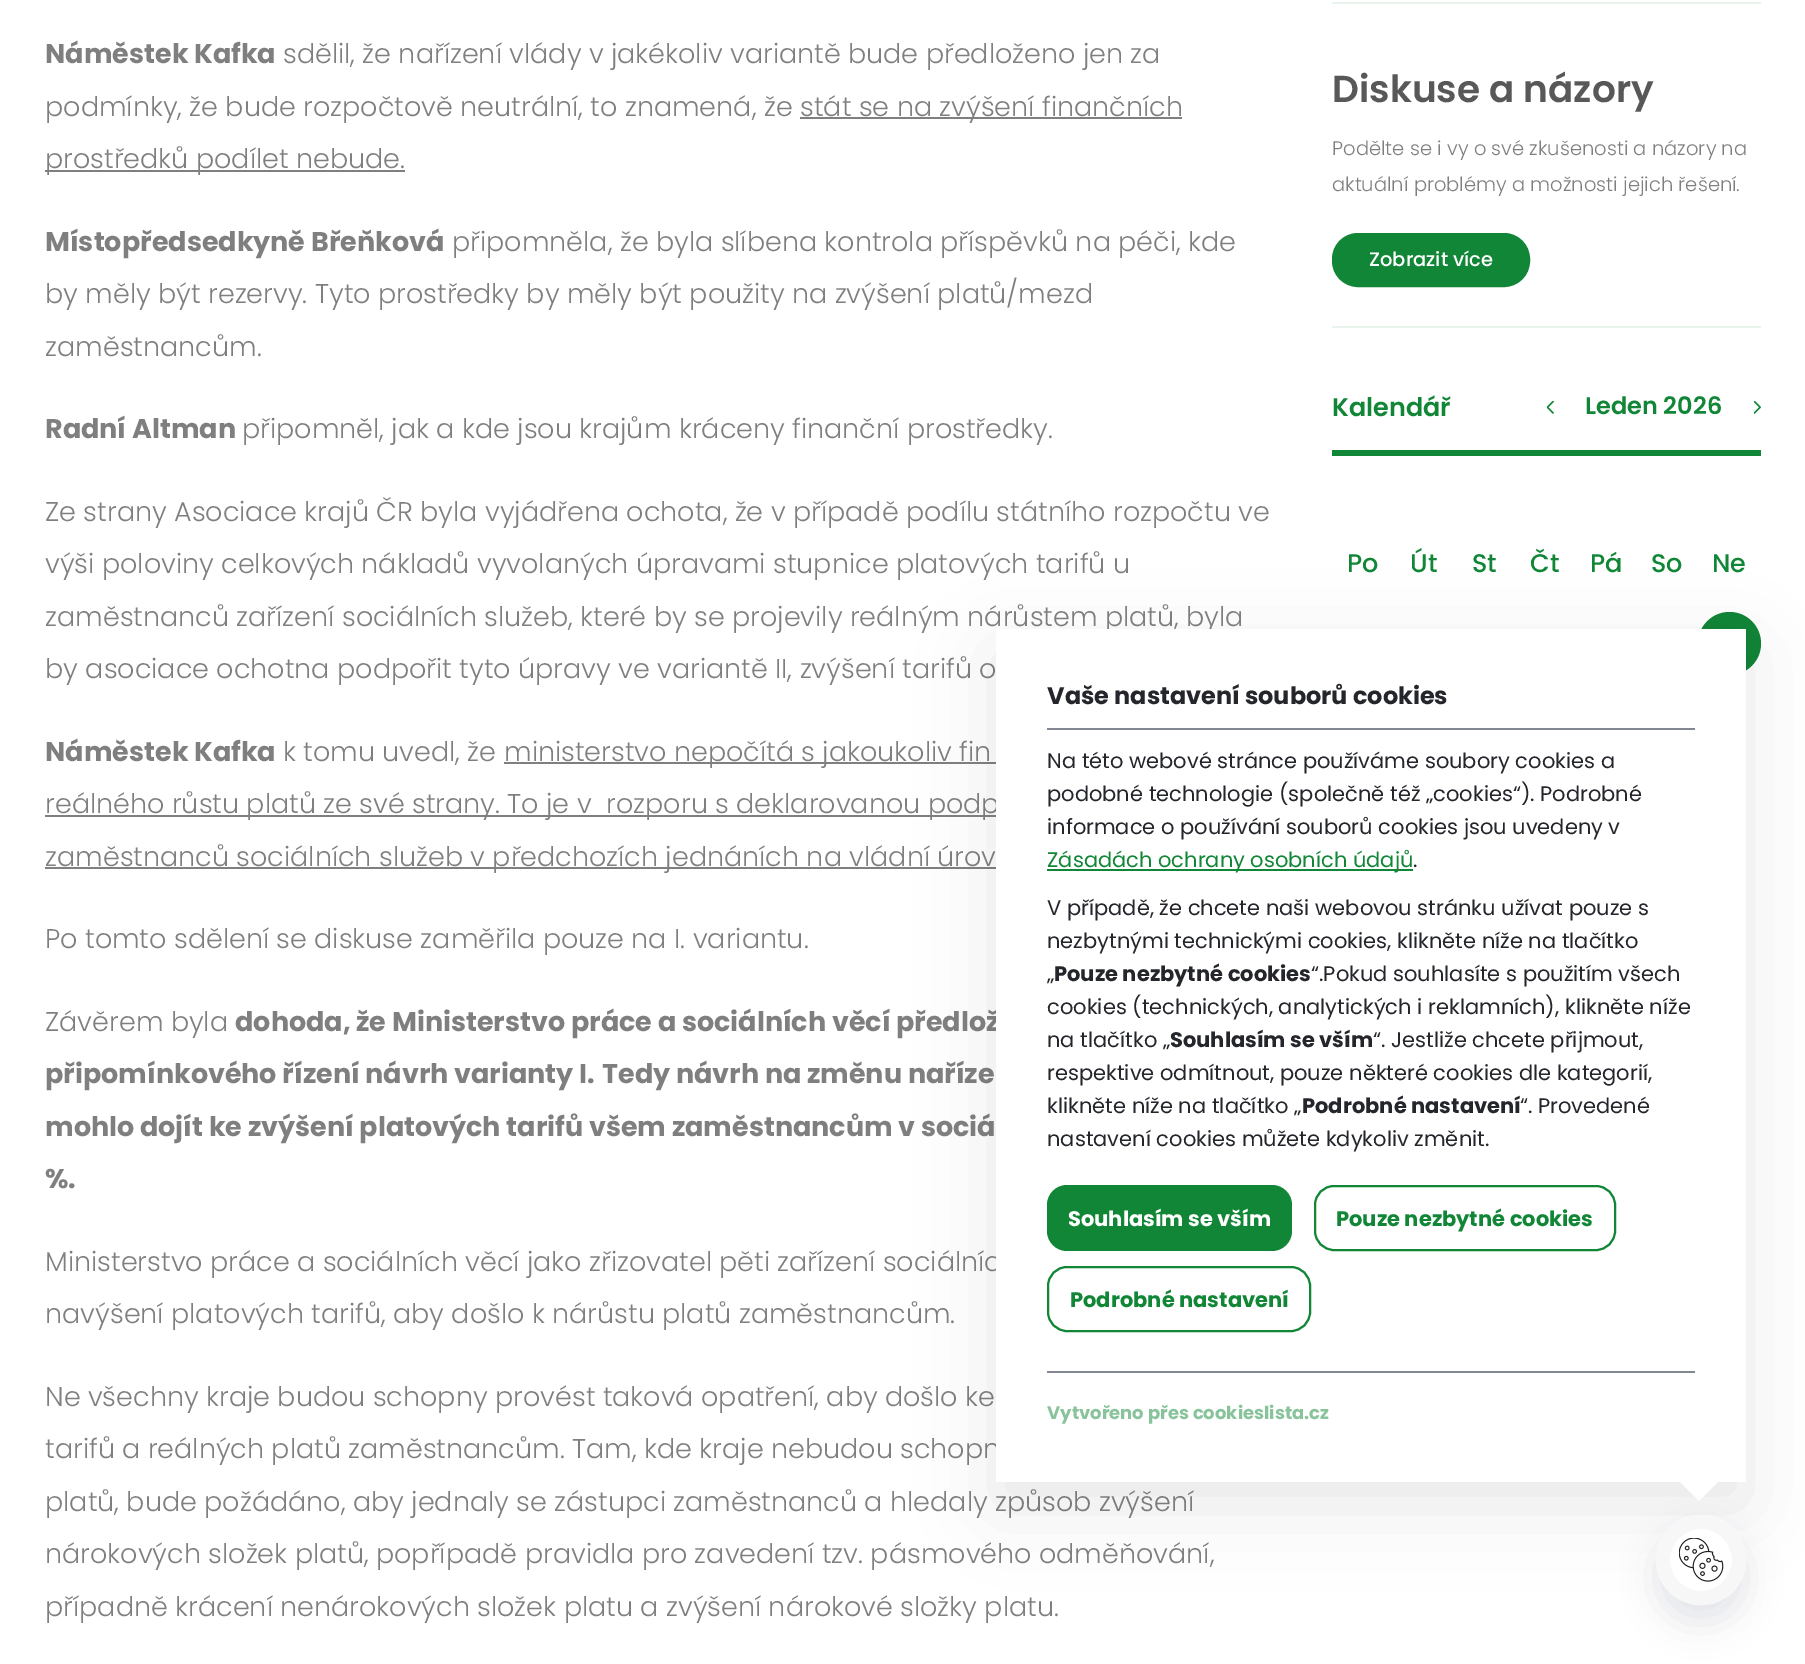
%!PS
<< /PageSize [1805 1664] /PageUsesTransparency true >> setpagedevice
/rgb { dup -16 bitshift 255 div exch dup -8 bitshift 255 and 255 div exch 255 and 255 div setrgbcolor } def
/font { [ exch dup neg 0 0 3 -1 roll 0 0 ] selectfont } def
/text { moveto show } def
/alpha { dup .setfillconstantalpha .setstrokeconstantalpha } def
/circle { newpath 0 360 arc closepath } def
/roundrect { 5 dict begin { /r /h /w /y /x } { exch def } forall
  x r add y moveto x w add y 2 copy h add r arct x w add y h add x 1 index r arct
  x y h add x y r arct x y 2 copy exch w add exch r arct closepath end } def
/shadow { 12 dict begin { /a /b /q /h /w /y /x } { exch def } forall gsave /was 0 def
  9 -2 -9 { dup b mul 4 div /e exch def 1 sub .425 mul 2.718 exch exp 1 add a .99 .min exch div /now exch def
    1 1 now sub 1 was sub div sub alpha /was now def
    w h .min e 2 mul add 0 gt { x e sub y e sub w e 2 mul add h e 2 mul add
      q e add b .6 mul add w h .min 2 div e add .min 0 .max roundrect fill } if } for grestore end } def
/picture { 5 dict begin { /h /w /y /x /name } { exch def } forall
  gsave x y translate w h scale
  w h 8 [w 0 0 h 0 0] name (r) file false 3 colorimage grestore end } def
0 .pushpdf14devicefilter
0 1664 translate 1 -1 scale
4 setmiterlimit
/s1 { /Poppins-Bold 27 font 16#7F7F7F rgb } def
/s2 { /Poppins-Light 27 font 16#7F7F7F rgb } def
/s3 { /Poppins-SemiBold 37.5 font 16#585858 rgb } def
/s4 { /Poppins-Light 19.5 font 16#7F7F7F rgb } def
/s5 { /Poppins-Medium 19.5 font 16#FFFFFF rgb } def
/s6 { /Poppins-SemiBold 25.5 font 16#118636 rgb } def
/s7 { /Poppins-SemiBold 24 font 16#118636 rgb } def
/s8 { /Poppins-Medium 25.5 font 16#118636 rgb } def
/s9 { /Poppins-Bold 24 font 16#24262B rgb } def
/s10 { /Poppins-Regular 21 font 16#24262B rgb } def
/s11 { /Poppins-Regular 21 font 16#118636 rgb } def
/s12 { /Poppins-Bold 21 font 16#24262B rgb } def
/s13 { /Poppins-Bold 21 font 16#FFFFFF rgb } def
/s14 { /Poppins-Bold 21 font 16#118636 rgb } def
/s15 { /Poppins-Bold 18 font 16#88C39B rgb } def
16#FFFFFF rgb
0 0 1805 1664 rectfill
s1
(Náměstek Kafka) 45 63 text
s2
(sdělil, že nařízení vlády v jakékoliv variantě bude předloženo jen za) 283 63 text
(podmínky, že bude rozpočtově neutrální, to znamená, že) 45 116 text
800 117 382 2 rectfill
(stát se na zvýšení finančních) 800 116 text
45 170 360 2 rectfill
(prostředků podílet nebude.) 45 168 text
s1
(Místopředsedkyně Břeňková) 45 251 text
s2
(připomněla, že byla slíbena kontrola příspěvků na péči, kde) 452 251 text
(by měly být rezervy. Tyto prostředky by měly být použity na zvýšení platů/mezd) 45 303 text
(zaměstnancům.) 45 356 text
s1
(Radní Altman) 45 438 text
s2
(připomněl, jak a kde jsou krajům kráceny finanční prostředky.) 242 438 text
(Ze strany Asociace krajů ČR byla vyjádřena ochota, že v případě podílu státního rozpočtu ve) 45 521 text
(výši poloviny celkových nákladů vyvolaných úpravami stupnice platových tarifů u) 45 573 text
(zaměstnanců zařízení sociálních služeb, které by se projevily reálným nárůstem platů, byla) 45 626 text
(by asociace ochotna podpořit tyto úpravy ve variantě II, zvýšení tarifů o) 45 678 text
s1
(Náměstek Kafka) 45 761 text
s2
(k tomu uvedl, že) 283 761 text
504 762 492 2 rectfill
(ministerstvo nepočítá s jakoukoliv fin) 504 761 text
45 815 951 2 rectfill
(reálného růstu platů ze své strany. To je v  rozporu s deklarovanou podp) 45 813 text
45 867 951 2 rectfill
(zaměstnanců sociálních služeb v předchozích jednáních na vládní úrov) 45 866 text
(Po tomto sdělení se diskuse zaměřila pouze na I. variantu.) 45 948 text
(Závěrem byla) 45 1031 text
s1
(dohoda, že Ministerstvo práce a sociálních věcí předlož) 235 1031 text
(připomínkového řízení návrh varianty I.) 45 1083 text
(Tedy návrh na změnu naříze) 602 1083 text
(mohlo dojít ke zvýšení platových tarifů všem zaměstnancům v sociá) 45 1136 text
(%.) 45 1188 text
s2
(Ministerstvo práce a sociálních věcí jako zřizovatel pěti zařízení sociálníc) 45 1271 text
(navýšení platových tarifů, aby došlo k nárůstu platů zaměstnancům.) 45 1323 text
(Ne všechny kraje budou schopny provést taková opatření, aby došlo ke) 45 1406 text
(tarifů a reálných platů zaměstnancům. Tam, kde kraje nebudou schopn) 45 1458 text
(platů, bude požádáno, aby jednaly se zástupci zaměstnanců a hledaly způsob zvýšení) 45 1511 text
(nárokových složek platů, popřípadě pravidla pro zavedení tzv. pásmového odměňování,) 45 1563 text
(případně krácení nenárokových složek platu a zvýšení nárokové složky platu.) 45 1616 text
16#E7F3EB rgb
1332 2 429 2 rectfill
1332 326 429 2 rectfill
s3
(Diskuse a názory) 1332 102 text
s4
(Podělte se i vy o své zkušenosti a názory na) 1332 155 text
(aktuální problémy a možnosti jejich řešení.) 1332 191 text
16#118636 rgb
1333.5 234.5 195 51 24.5 roundrect gsave fill grestore
3 setlinewidth
stroke
s5
(Zobrazit více) 1369 266 text
16#118636 rgb
1332 450 429 6 rectfill
s6
(Kalendář) 1332 416 text
(pic1.raw) 1547 401 7 13 picture
s7
(Leden 2026) 1585 414 text
(pic2.raw) 1754 401 7 13 picture
s8
(Po) 1347 572 text
(Út) 1410 572 text
(St) 1472 572 text
(Čt) 1530 572 text
(Pá) 1590 572 text
(So) 1651 572 text
(Ne) 1712 572 text
1729.5 643.5 31.5 circle fill
16#000000 rgb
996 653 750 853 0 37.5 0.09 shadow
16#FFFFFF rgb
996 629 750 853 rectfill
16#838791 rgb
1047 728 648 2 rectfill
s9
(Vaše nastavení souborů cookies) 1047 704 text
s10
(Na této webové stránce používáme soubory cookies a) 1047 768 text
(podobné technologie \(společně též „cookies“\). Podrobné) 1047 801 text
(informace o používání souborů cookies jsou uvedeny v) 1047 834 text
16#118636 rgb
1047 869 366 2 rectfill
(Zásadách ochrany osobních údajů) 1047 867 text
s10
(.) 1413 867 text
(V případě, že chcete naši webovou stránku užívat pouze s) 1047 915 text
(nezbytnými technickými cookies, klikněte níže na tlačítko) 1047 948 text
(„) 1047 981 text
s12
(Pouze nezbytné cookies) 1054 981 text
s10
(“.Pokud souhlasíte s použitím všech) 1311 981 text
(cookies \(technických, analytických i reklamních\), klikněte níže) 1047 1014 text
(na tlačítko „) 1047 1047 text
s12
(Souhlasím se vším) 1170 1047 text
s10
(“. Jestliže chcete přijmout,) 1373 1047 text
(respektive odmítnout, pouze některé cookies dle kategorií,) 1047 1080 text
(klikněte níže na tlačítko „) 1047 1113 text
s12
(Podrobné nastavení) 1302 1113 text
s10
(“. Provedené) 1520 1113 text
(nastavení cookies můžete kdykoliv změnit.) 1047 1146 text
16#118636 rgb
1047 1185 245 66 20 roundrect fill
s13
(Souhlasím se vším) 1068 1226 text
16#118636 rgb
2 setlinewidth
1315 1186 300 64 19 roundrect stroke
(Pouze nezbytné cookies) 1336 1226 text
1048 1267 262 64 19 roundrect stroke
(Podrobné nastavení) 1070 1307 text
16#838791 rgb
1047 1371 648 2 rectfill
s15
(Vytvořeno přes cookieslista.cz) 1047 1419 text
16#FFFFFF rgb
1689 1481 moveto 1679 1481 lineto 1699 1501 lineto 1719 1481 lineto closepath fill
16#BBC1CE rgb
1656 1533 90 90 45 17 0.4 shadow
16#FFFFFF rgb
1701 1560 45 circle fill
(pic3.raw) 1679 1538 45 44 picture
16#F7F7F7 rgb
14 setlinewidth
1701 1560 38 circle stroke
.poppdf14devicefilter showpage
